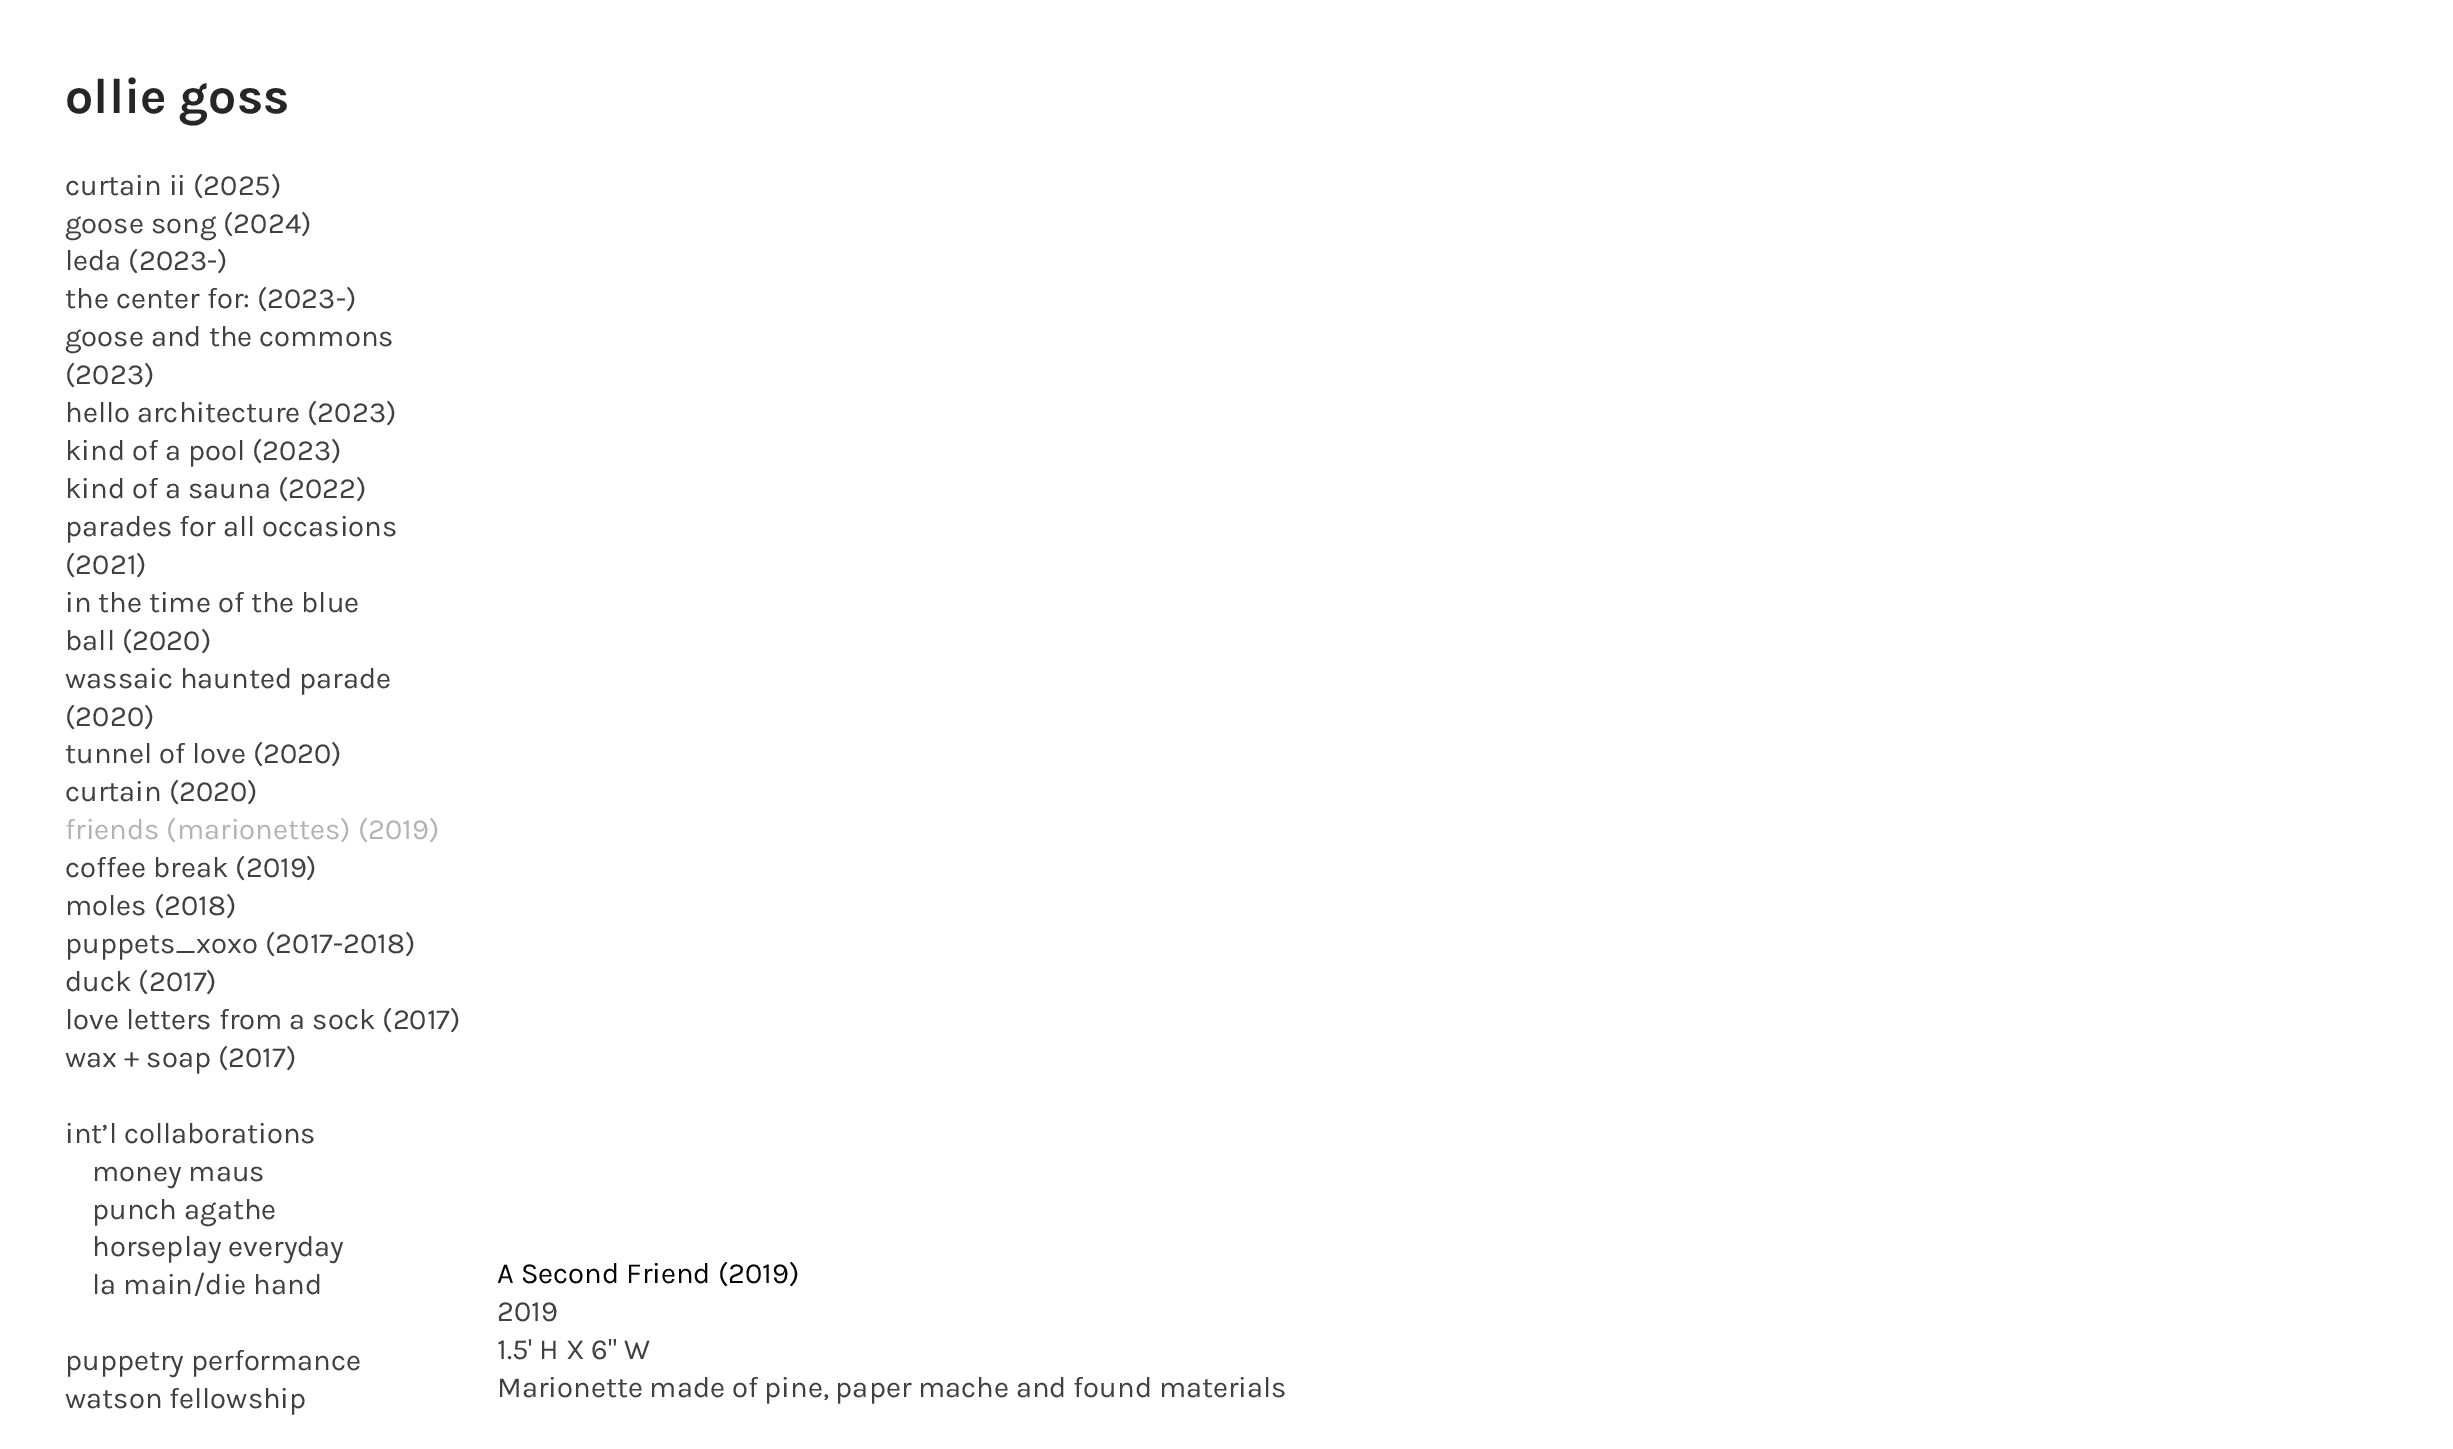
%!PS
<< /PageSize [2453 1449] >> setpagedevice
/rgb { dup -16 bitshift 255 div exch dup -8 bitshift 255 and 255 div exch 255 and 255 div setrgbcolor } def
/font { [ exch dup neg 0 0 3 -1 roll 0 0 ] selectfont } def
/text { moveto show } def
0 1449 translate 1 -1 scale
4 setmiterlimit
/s1 { /Karla-Bold 50 font 16#262626 rgb } def
/s2 { /Karla-Regular 29.2 font 16#404040 rgb } def
/s3 { /Karla-Regular 29.2 font 16#B3B3B3 rgb } def
/s4 { /Karla-Regular 29.2 font 16#060606 rgb } def
16#FFFFFF rgb
0 0 2453 1449 rectfill
s1
(ollie goss) 65 113 text
s2
(curtain ii \(2025\)) 65 195 text
(goose song \(2024\)) 65 233 text
(leda \(2023-\)) 65 270 text
(the center for: \(2023-\)) 65 308 text
(goose and the commons) 65 346 text
(\(2023\)) 65 384 text
(hello architecture \(2023\)) 65 422 text
(kind of a pool \(2023\)) 65 460 text
(kind of a sauna \(2022\)) 65 498 text
(parades for all occasions) 65 536 text
(\(2021\)) 65 574 text
(in the time of the blue) 65 612 text
(ball \(2020\)) 65 650 text
(wassaic haunted parade) 65 688 text
(\(2020\)) 65 726 text
(tunnel of love \(2020\)) 65 763 text
(curtain \(2020\)) 65 801 text
s3
(friends \(marionettes\) \(2019\)) 65 839 text
s2
(coffee break \(2019\)) 65 877 text
(moles \(2018\)) 65 915 text
(puppets_xoxo \(2017-2018\)) 65 953 text
(duck \(2017\)) 65 991 text
(love letters from a sock \(2017\)) 65 1029 text
(wax + soap \(2017\)) 65 1067 text
(int’l collaborations) 65 1143 text
(money maus) 92 1181 text
(punch agathe) 92 1219 text
(horseplay everyday) 92 1256 text
(la main/die hand) 92 1294 text
(puppetry performance) 65 1370 text
(watson fellowship) 65 1408 text
s4
(A Second Friend \(2019\)) 497 1283 text
s2
(2019) 497 1321 text
(1.5' H X 6" W) 497 1359 text
497 1397 moveto -0.25 0 32 (Marionette made of pine, paper mache and found materials) widthshow
showpage
